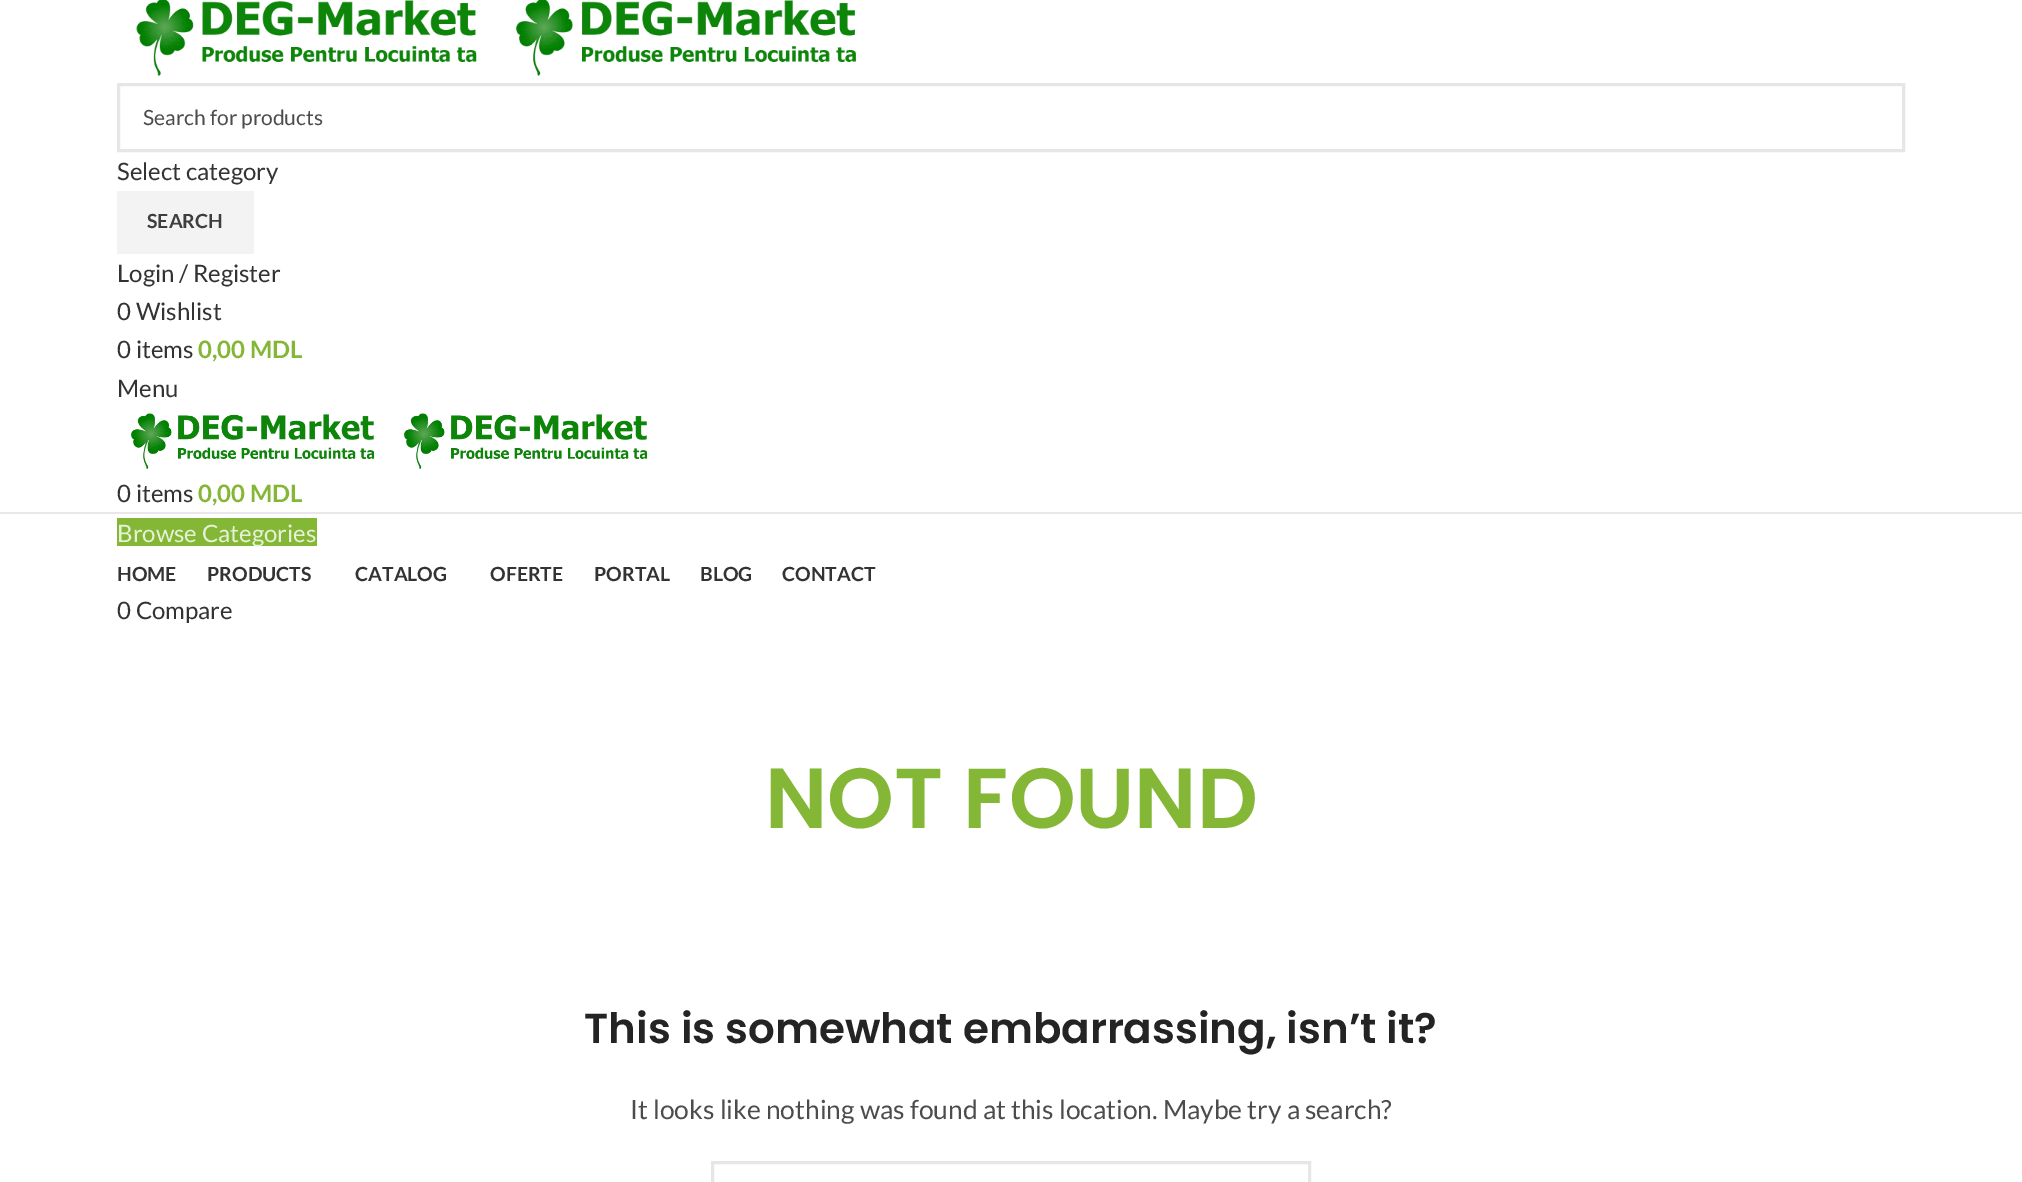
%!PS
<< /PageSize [2022 1182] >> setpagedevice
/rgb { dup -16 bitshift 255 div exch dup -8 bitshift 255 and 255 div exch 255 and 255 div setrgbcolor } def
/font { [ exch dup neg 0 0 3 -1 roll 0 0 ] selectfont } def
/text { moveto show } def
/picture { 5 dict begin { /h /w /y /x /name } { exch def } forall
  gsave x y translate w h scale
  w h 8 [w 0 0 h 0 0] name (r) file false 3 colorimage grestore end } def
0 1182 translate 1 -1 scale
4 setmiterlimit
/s1 { /Lato-Regular 21 font 16#4C4C4C rgb } def
/s2 { /Lato-Regular 24 font 16#333333 rgb } def
/s3 { /Lato-Bold 19.5 font 16#3E3E3E rgb } def
/s4 { /Lato-Bold 24 font 16#83B735 rgb } def
/s5 { /Lato-Regular 24 font 16#E6F1D7 rgb } def
/s6 { /Lato-Bold 19.5 font 16#333333 rgb } def
/s7 { /Poppins-SemiBold 85 font 16#83B735 rgb } def
/s8 { /Poppins-SemiBold 42 font 16#242424 rgb } def
/s9 { /Lato-Regular 26.4 font 16#4C4C4C rgb } def
16#FFFFFF rgb
0 0 2022 1182 rectfill
16#E8E8E8 rgb
0 512 2022 2 rectfill
(pic1.raw) 136 0 341 76 picture
(pic2.raw) 516 0 341 76 picture
16#E6E6E6 rgb
3 setlinewidth
118.5 84.5 1785 66 rectstroke
s1
(Search for products) 143 125 text
s2
(Select category) 117 180 text
16#F3F3F3 rgb
117 191 137 63 rectfill
s3
(SEARCH) 147 228 text
s2
(Login / Register) 117 282 text
(0 Wishlist) 117 320 text
(0 items) 117 358 text
s4
(0,00 MDL) 198 358 text
s2
(Menu) 117 397 text
(pic3.raw) 131 413 244 56 picture
(pic3.raw) 404 413 244 56 picture
(0 items) 117 502 text
s4
(0,00 MDL) 198 502 text
117 518 200 28 rectfill
s5
(Browse Categories) 117 542 text
s6
(HOME) 117 581 text
(PRODUCTS) 207 581 text
(CATALOG) 355 581 text
(OFERTE) 490 581 text
(PORTAL) 594 581 text
(BLOG) 700 581 text
(CONTACT) 782 581 text
s2
(0 Compare) 117 619 text
s7
(NOT FOUND) 765 828 text
s8
(This is somewhat embarrassing, isn’t it?) 584 1043 text
s9
(It looks like nothing was found at this location. Maybe try a search?) 630 1119 text
16#E6E6E6 rgb
712.5 1162.5 597 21 rectstroke
showpage
